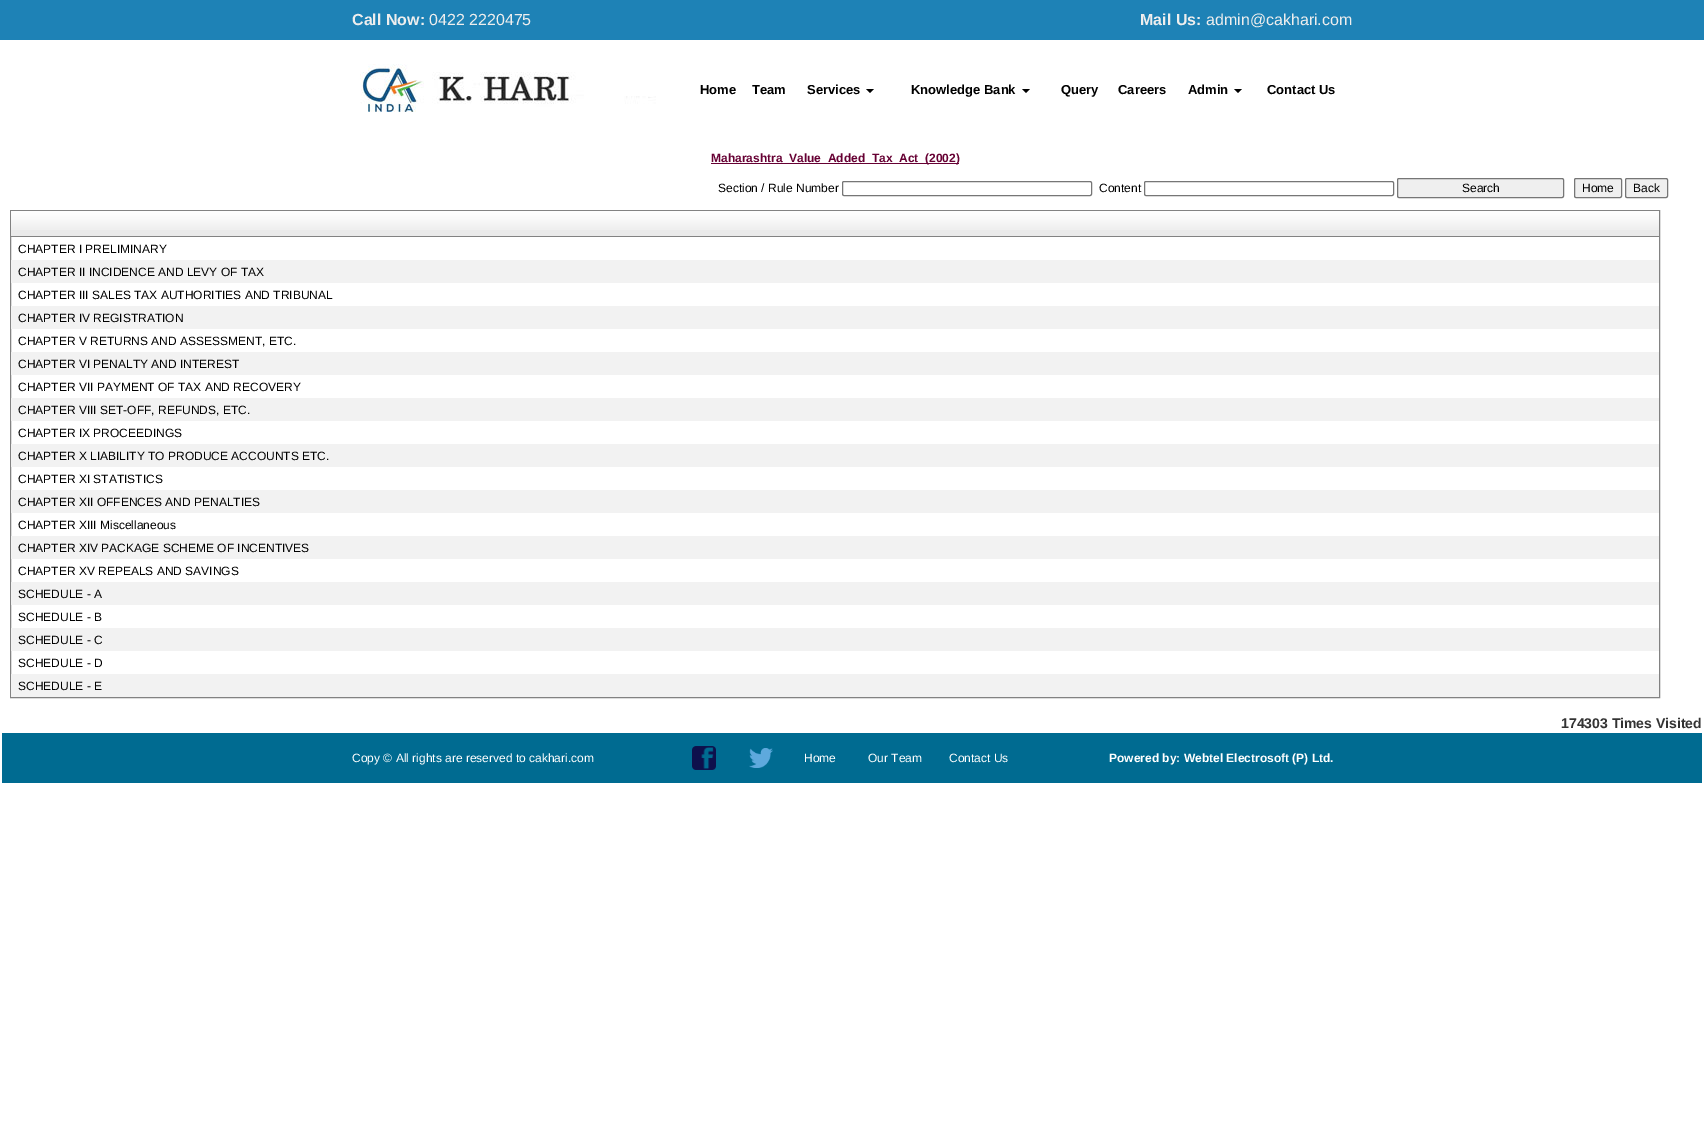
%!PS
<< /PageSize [1704 1133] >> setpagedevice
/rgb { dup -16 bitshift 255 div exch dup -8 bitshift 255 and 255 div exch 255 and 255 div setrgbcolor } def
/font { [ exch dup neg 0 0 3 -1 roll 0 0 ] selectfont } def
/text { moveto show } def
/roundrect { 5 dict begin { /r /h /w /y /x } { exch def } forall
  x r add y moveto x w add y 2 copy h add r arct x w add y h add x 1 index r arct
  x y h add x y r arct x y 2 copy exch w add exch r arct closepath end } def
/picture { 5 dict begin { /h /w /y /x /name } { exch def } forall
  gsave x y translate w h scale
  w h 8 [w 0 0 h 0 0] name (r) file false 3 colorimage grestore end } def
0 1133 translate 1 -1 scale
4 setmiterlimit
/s1 { /LiberationSans-Bold 16 font 16#EEEEEE rgb } def
/s2 { /LiberationSans-Regular 16 font 16#EEEEEE rgb } def
/s3 { /LiberationSans-Bold 13 font 16#000000 rgb } def
/s4 { /LiberationSans-Bold 12 font 16#660033 rgb } def
/s5 { /LiberationSans-Regular 12 font 16#000000 rgb } def
/s6 { /LiberationSans-Bold 14 font 16#333333 rgb } def
/s7 { /LiberationSans-Regular 12 font 16#FFFFFF rgb } def
/s8 { /LiberationSans-Bold 12 font 16#FFFFFF rgb } def
16#FFFFFF rgb
0 0 1704 1133 rectfill
16#1E82B6 rgb
0 0 1704 40 rectfill
s1
(Call Now:) 352 25 text
s2
(0422 2220475) 429 25 text
s1
(Mail Us:) 1140 25 text
s2
(admin@cakhari.com) 1206 25 text
(pic1.raw) 360 64 296 48 picture
s3
(Home) 700 94 text
(Team) 752 94 text
(Services) 807 94 text
866 89 moveto 874 89 lineto 870 93 lineto closepath fill
(Knowledge Bank) 911 94 text
1022 89 moveto 1030 89 lineto 1026 93 lineto closepath fill
(Query) 1061 94 text
(Careers) 1118 94 text
(Admin) 1188 94 text
1234 89 moveto 1242 89 lineto 1238 93 lineto closepath fill
(Contact Us) 1267 94 text
16#660033 rgb
711 163 248 1 rectfill
s4
(Maharashtra_Value_Added_Tax_Act_\(2002\)) 711 162 text
s5
(Section / Rule Number) 718 192 text
16#767676 rgb
842.5 181.5 249 14 1.5 roundrect stroke
s5
(Content) 1099 192 text
16#767676 rgb
1144.5 181.5 249 14 1.5 roundrect stroke
16#EFEFEF rgb
1397.5 178.5 166 19 1.5 roundrect gsave fill grestore
16#767676 rgb
stroke
s5
(Search) 1462 192 text
16#EFEFEF rgb
1574.5 178.5 47 19 1.5 roundrect gsave fill grestore
16#767676 rgb
stroke
s5
(Home) 1582 192 text
16#EFEFEF rgb
1625.5 178.5 42 19 1.5 roundrect gsave fill grestore
16#767676 rgb
stroke
s5
(Back) 1633 192 text
16#828282 rgb
10.5 210.5 1649 487 rectstroke
16#EAEAEA rgb
11 230 1648 6 rectfill
(pic2.raw) 11 211 1648 19 picture
16#828282 rgb
11 236 1648 1 rectfill
s5
(CHAPTER I PRELIMINARY) 18 253 text
16#F2F2F2 rgb
11 260 1648 23 rectfill
s5
(CHAPTER II INCIDENCE AND LEVY OF TAX) 18 276 text
(CHAPTER III SALES TAX AUTHORITIES AND TRIBUNAL) 18 299 text
16#F2F2F2 rgb
11 306 1648 23 rectfill
s5
(CHAPTER IV REGISTRATION) 18 322 text
(CHAPTER V RETURNS AND ASSESSMENT, ETC.) 18 345 text
16#F2F2F2 rgb
11 352 1648 23 rectfill
s5
(CHAPTER VI PENALTY AND INTEREST) 18 368 text
(CHAPTER VII PAYMENT OF TAX AND RECOVERY) 18 391 text
16#F2F2F2 rgb
11 398 1648 23 rectfill
s5
(CHAPTER VIII SET-OFF, REFUNDS, ETC.) 18 414 text
(CHAPTER IX PROCEEDINGS) 18 437 text
16#F2F2F2 rgb
11 444 1648 23 rectfill
s5
(CHAPTER X LIABILITY TO PRODUCE ACCOUNTS ETC.) 18 460 text
(CHAPTER XI STATISTICS) 18 483 text
16#F2F2F2 rgb
11 490 1648 23 rectfill
s5
(CHAPTER XII OFFENCES AND PENALTIES) 18 506 text
(CHAPTER XIII Miscellaneous) 18 529 text
16#F2F2F2 rgb
11 536 1648 23 rectfill
s5
(CHAPTER XIV PACKAGE SCHEME OF INCENTIVES) 18 552 text
(CHAPTER XV REPEALS AND SAVINGS) 18 575 text
16#F2F2F2 rgb
11 582 1648 23 rectfill
s5
(SCHEDULE - A) 18 598 text
(SCHEDULE - B) 18 621 text
16#F2F2F2 rgb
11 628 1648 23 rectfill
s5
(SCHEDULE - C) 18 644 text
(SCHEDULE - D) 18 667 text
16#F2F2F2 rgb
11 674 1648 23 rectfill
s5
(SCHEDULE - E) 18 690 text
s6
(174303 Times Visited) 1561 728 text
16#006B91 rgb
2 733 1700 50 rectfill
s7
(Copy © All rights are reserved to cakhari.com) 352 762 text
(pic3.raw) 692 746 24 24 picture
(pic4.raw) 749 748 24 20 picture
(Home) 804 762 text
(Our Team) 868 762 text
(Contact Us) 949 762 text
s8
(Powered by: Webtel Electrosoft \(P\) Ltd.) 1109 762 text
showpage
